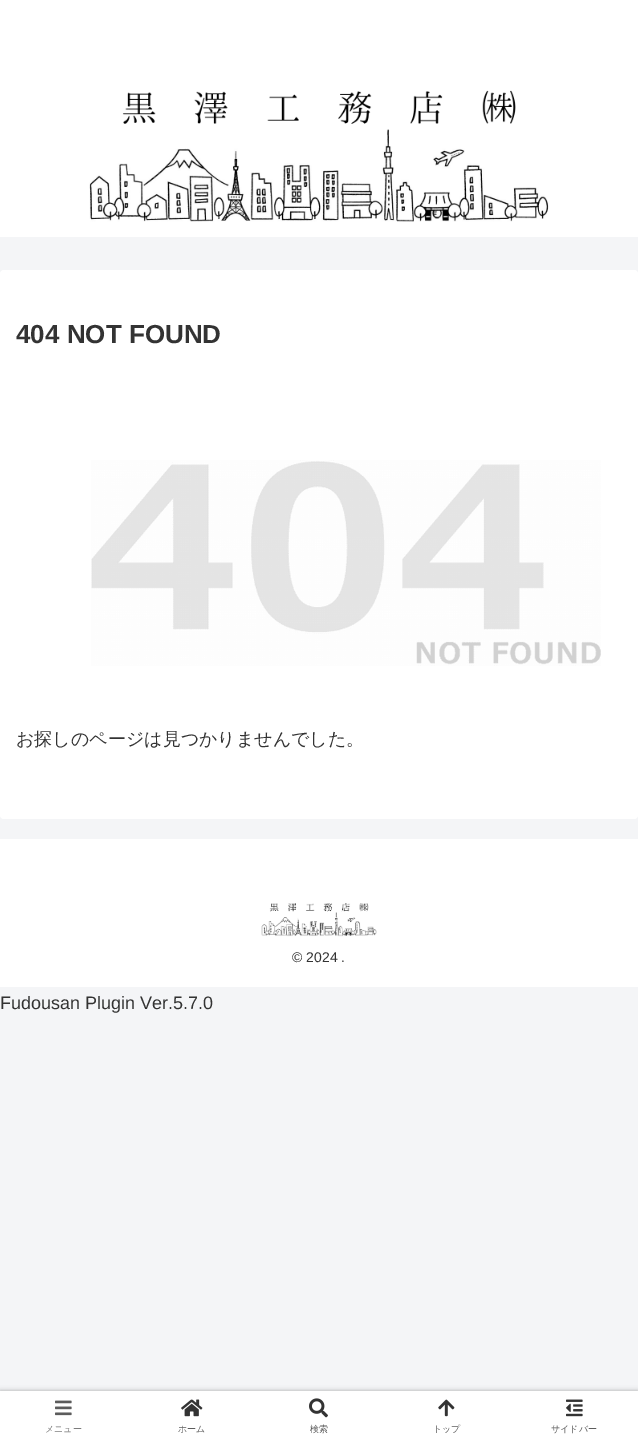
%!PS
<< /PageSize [638 1441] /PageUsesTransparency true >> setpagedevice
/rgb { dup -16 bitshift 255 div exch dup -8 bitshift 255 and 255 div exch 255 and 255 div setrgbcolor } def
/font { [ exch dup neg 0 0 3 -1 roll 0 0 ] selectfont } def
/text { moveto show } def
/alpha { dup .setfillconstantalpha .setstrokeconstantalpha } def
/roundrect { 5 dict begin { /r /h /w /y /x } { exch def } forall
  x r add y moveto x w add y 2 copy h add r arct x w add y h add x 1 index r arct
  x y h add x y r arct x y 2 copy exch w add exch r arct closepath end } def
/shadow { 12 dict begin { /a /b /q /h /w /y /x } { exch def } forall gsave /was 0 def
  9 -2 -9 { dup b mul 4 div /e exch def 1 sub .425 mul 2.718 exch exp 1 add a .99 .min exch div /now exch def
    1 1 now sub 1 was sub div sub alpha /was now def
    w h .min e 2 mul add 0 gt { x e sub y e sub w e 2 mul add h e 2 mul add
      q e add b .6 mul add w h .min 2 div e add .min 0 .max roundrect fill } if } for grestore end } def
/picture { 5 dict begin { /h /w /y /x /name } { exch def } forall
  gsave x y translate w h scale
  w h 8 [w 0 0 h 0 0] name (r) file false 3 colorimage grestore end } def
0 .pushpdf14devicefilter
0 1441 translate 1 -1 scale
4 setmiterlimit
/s1 { /LiberationSans-Bold 26 font 16#333333 rgb } def
/s2 { /WenQuanYiZenHei-Medium 18 font 16#333333 rgb } def
/s3 { /LiberationSans-Regular 14 font 16#333333 rgb } def
/s4 { /LiberationSans-Regular 18 font 16#333333 rgb } def
/s5 { /WenQuanYiZenHei-Medium 9 font 16#7C7C7C rgb } def
/s6 { /WenQuanYiZenHei-Medium 9 font 16#5C5C5C rgb } def
16#F4F5F7 rgb
0 0 638 1441 rectfill
16#FFFFFF rgb
0 0 638 237 rectfill
(pic1.raw) 89 90 460 132 picture
0 270 638 549 4 roundrect fill
s1
(404 NOT FOUND) 16 343 text
(pic2.raw) 91 460 510 206 picture
s2
(お探しのページは見つかりませんでした。) 16 745 text
16#FFFFFF rgb
0 839 638 148 rectfill
(pic3.raw) 261 903 116 34 picture
s3
(© 2024 .) 292 962 text
s4
(Fudousan Plugin Ver.5.7.0) 0 1009 text
16#A9A9A9 rgb
0 1391 638 50 0 2.5 1 shadow
16#FFFFFF rgb
0 1391 638 50 rectfill
(pic4.raw) 55 1400 17 16 picture
s5
(メニュー) 45 1432 text
(pic5.raw) 181 1399 22 18 picture
s6
(ホーム) 178 1432 text
(pic6.raw) 309 1398 19 20 picture
(検索) 310 1432 text
(pic7.raw) 438 1399 17 18 picture
(トップ) 433 1432 text
(pic8.raw) 566 1399 17 18 picture
(サイドバー) 551 1432 text
.poppdf14devicefilter showpage
